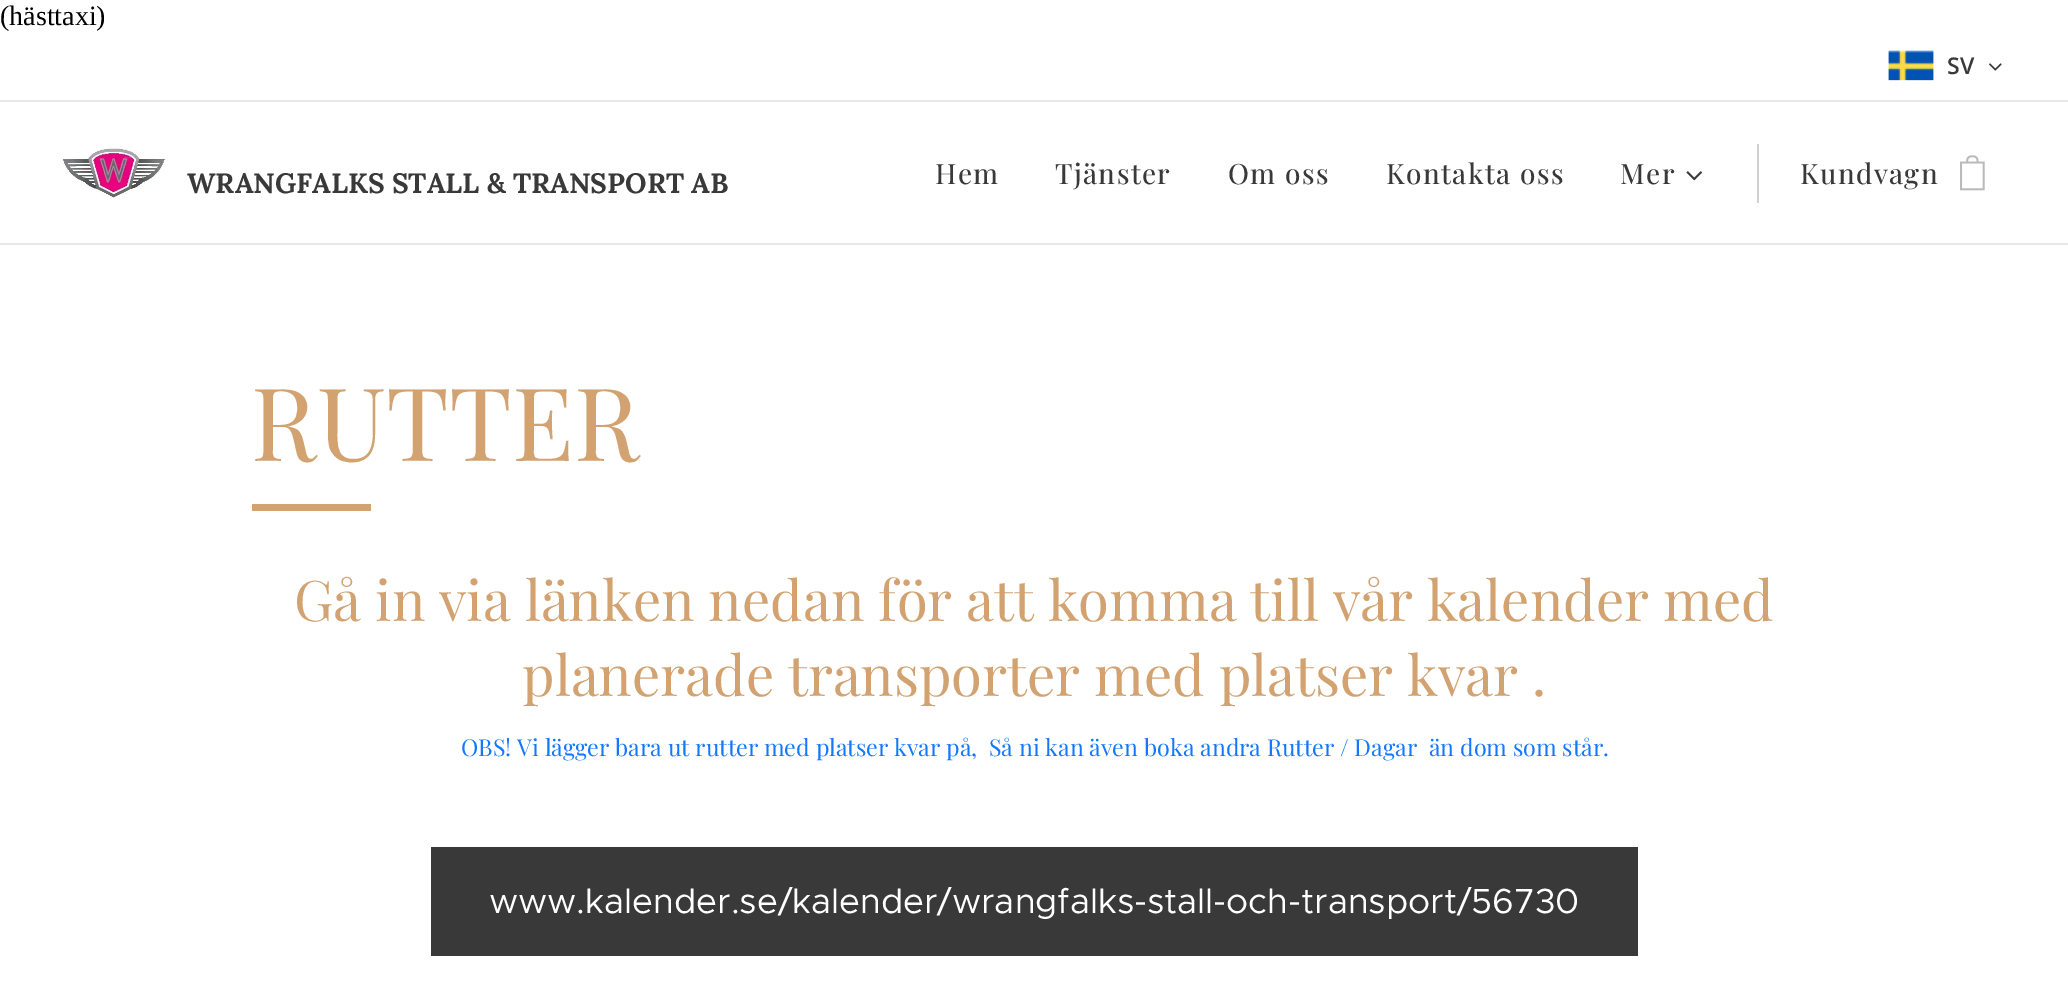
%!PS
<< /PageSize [2068 994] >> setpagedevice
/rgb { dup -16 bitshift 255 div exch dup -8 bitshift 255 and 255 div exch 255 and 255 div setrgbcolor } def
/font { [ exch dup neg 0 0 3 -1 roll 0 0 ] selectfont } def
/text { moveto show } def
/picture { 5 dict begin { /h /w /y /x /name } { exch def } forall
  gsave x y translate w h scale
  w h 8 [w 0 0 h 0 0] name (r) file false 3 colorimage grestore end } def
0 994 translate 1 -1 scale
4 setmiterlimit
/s1 { /LiberationSerif-Regular 28 font 16#000000 rgb } def
/s2 { /OpenSans-SemiBold 23 font 16#393939 rgb } def
/s3 { /Lora-Bold 28 font 16#393939 rgb } def
/s4 { /PlayfairDisplay-Regular 101.5 font 16#D2A270 rgb } def
/s5 { /PlayfairDisplay-Regular 56 font 16#D2A270 rgb } def
/s6 { /PlayfairDisplay-Regular 23.3 font 16#1278FF rgb } def
/s7 { /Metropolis-Regular 35 font 16#FFFFFF rgb } def
16#FFFFFF rgb
0 0 2068 994 rectfill
s1
(\(hästtaxi\)) 0 25 text
(pic1.raw) 1888 50 46 31 picture
s2
(SV) 1947 74 text
(pic2.raw) 1989 63 13 8 picture
16#E8E8E8 rgb
0 100 2068 2 rectfill
(pic3.raw) 63 148 103 51 picture
s3
(WRANGFALKS STALL & TRANSPORT AB) 187 193 text
/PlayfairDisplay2-Regular 28 font
935 184 moveto 1.4 0 (Hem) ashow
1055 184 moveto 1.4 0 (Tjänster) ashow
1228 184 moveto 1.4 0 (Om oss) ashow
1386 184 moveto 1.4 0 (Kontakta oss) ashow
1620 184 moveto 1.4 0 (Mer) ashow
(pic4.raw) 1686 171 16 10 picture
16#D1D1D1 rgb
1757 144 2 59 rectfill
16#393939 rgb
1800 184 moveto 1.4 0 (Kundvagn) ashow
(pic5.raw) 1960 155 25 36 picture
16#E8E8E8 rgb
0 243 2068 2 rectfill
s4
(RUTTER) 251 461 text
252 504 119 7 rectfill
s5
(Gå in via länken nedan för att komma till vår kalender med) 294 621 text
(planerade transporter med platser kvar .) 522 696 text
s6
(OBS! Vi lägger bara ut rutter med platser kvar på,  Så ni kan även boka andra Rutter / Dagar  än dom som står.) 461 756 text
16#393939 rgb
431 847 1207 109 rectfill
s7
(www.kalender.se/kalender/wrangfalks-stall-och-transport/56730) 489 913 text
showpage
